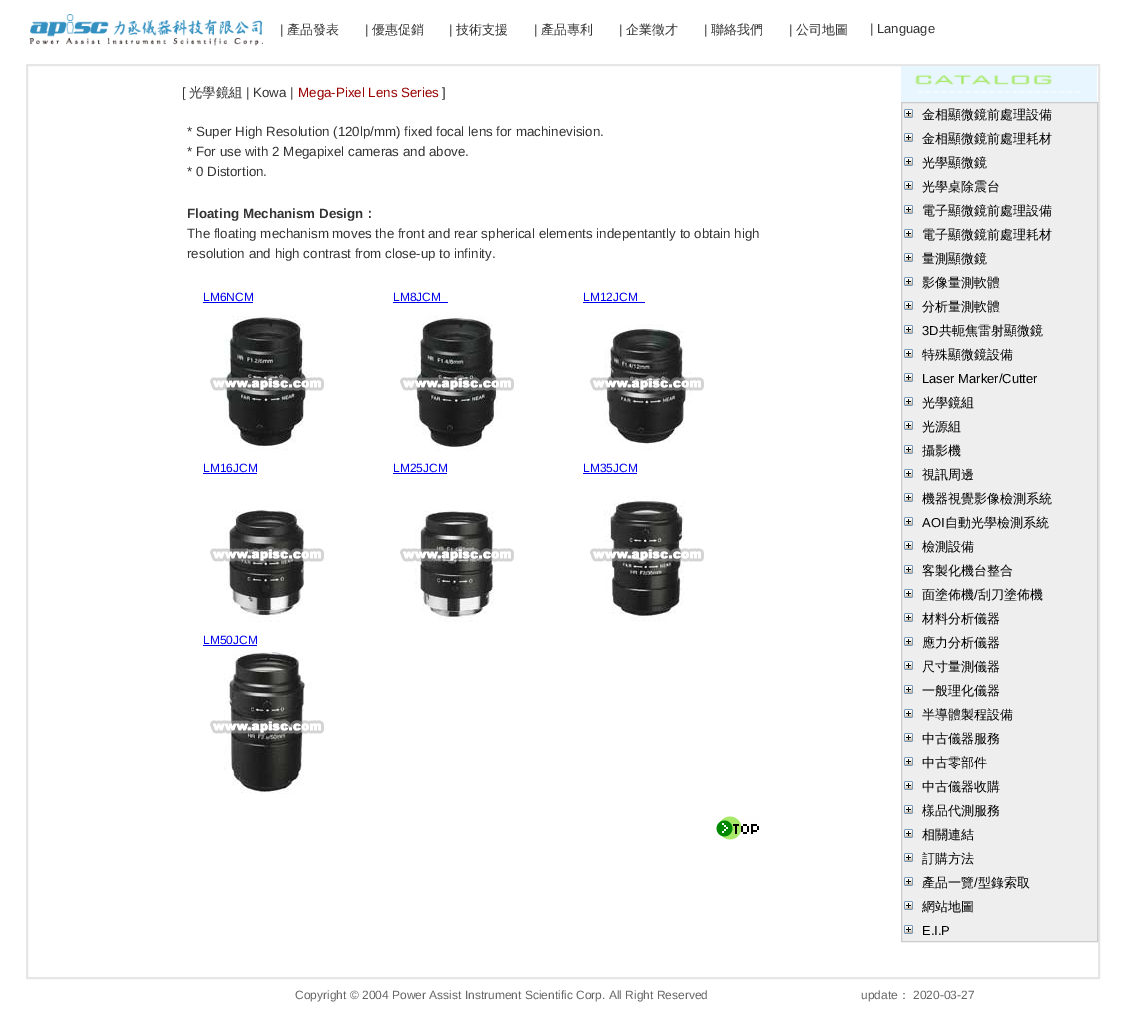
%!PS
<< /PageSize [1126 1034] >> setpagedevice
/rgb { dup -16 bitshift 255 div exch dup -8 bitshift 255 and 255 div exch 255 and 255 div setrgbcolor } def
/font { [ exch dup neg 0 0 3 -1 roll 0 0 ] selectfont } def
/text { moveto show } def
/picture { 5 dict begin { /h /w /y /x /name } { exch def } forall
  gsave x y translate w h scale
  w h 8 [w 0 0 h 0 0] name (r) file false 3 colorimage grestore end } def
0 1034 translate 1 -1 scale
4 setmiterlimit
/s1 { /LiberationSans-Regular 13 font 16#333333 rgb } def
/s2 { /WenQuanYiZenHei-Medium 13 font 16#333333 rgb } def
/s3 { /LiberationSans-Regular 13.35 font 16#333333 rgb } def
/s4 { /WenQuanYiZenHei-Medium 13.35 font 16#333333 rgb } def
/s5 { /LiberationSans-Regular 13.35 font 16#990000 rgb } def
/s6 { /LiberationSans-Bold 13.35 font 16#333333 rgb } def
/s7 { /WenQuanYiZenHei-Bold 13.35 font 16#333333 rgb } def
/s8 { /LiberationSans-Regular 12 font 16#0000EE rgb } def
/s9 { /WenQuanYiZenHei-Medium 13 font 16#000000 rgb } def
/s10 { /LiberationSans-Regular 13 font 16#000000 rgb } def
/s11 { /LiberationSans-Regular 12 font 16#666666 rgb } def
/s12 { /WenQuanYiZenHei-Medium 12 font 16#666666 rgb } def
16#FFFFFF rgb
0 0 1126 1034 rectfill
(pic1.raw) 29 14 234 32 picture
s1
(|) 280 34 text
s2
(產品發表) 287 34 text
s1
(|) 365 34 text
s2
(優惠促銷) 372 34 text
s1
(|) 449 34 text
s2
(技術支援) 456 34 text
s1
(|) 534 34 text
s2
(產品專利) 541 34 text
s1
(|) 619 34 text
s2
(企業徵才) 626 34 text
s1
(|) 704 34 text
s2
(聯絡我們) 711 34 text
s1
(|) 789 34 text
s2
(公司地圖) 796 34 text
s1
(| Language) 870 33 text
16#E6E6E6 rgb
26.5 64.5 1073 914 rectstroke
27.5 65.5 1071 912 rectstroke
s3
([) 182 97 text
s4
(光學鏡組) 189 97 text
s3
(| Kowa |) 246 97 text
s5
(Mega-Pixel Lens Series) 298 97 text
s3
(]) 442 97 text
(* Super High Resolution \(120lp/mm\) fixed focal lens for machinevision.) 187 136 text
(* For use with 2 Megapixel cameras and above.) 187 156 text
(* 0 Distortion.) 187 176 text
s6
(Floating Mechanism Design) 187 218 text
s7
(：) 363 218 text
s3
(The floating mechanism moves the front and rear spherical elements indepentantly to obtain high) 187 238 text
(resolution and high contrast from close-up to infinity.) 187 258 text
s8
(LM6NCM) 203 301 text
203 302 50 1 rectfill
(LM8JCM) 393 301 text
393 302 55 1 rectfill
(LM12JCM) 583 301 text
583 302 62 1 rectfill
(pic2.raw) 210 315 114 136 picture
(pic3.raw) 400 315 114 136 picture
(pic4.raw) 590 324 114 127 picture
(LM16JCM) 203 472 text
203 473 54 1 rectfill
(LM25JCM) 393 472 text
393 473 54 1 rectfill
(LM35JCM) 583 472 text
583 473 54 1 rectfill
(pic5.raw) 210 510 114 112 picture
(pic6.raw) 400 510 114 112 picture
(pic7.raw) 590 496 114 126 picture
(LM50JCM) 203 644 text
203 645 54 1 rectfill
(pic8.raw) 210 650 114 144 picture
(pic9.raw) 716 816 43 24 picture
(pic10.raw) 901 66 196 36 picture
16#EEEEEE rgb
901.5 102.5 moveto 1097.5 102.5 lineto 1097.5 941.5 lineto 901.5 941.5 lineto closepath gsave fill grestore
16#CCCCCC rgb
stroke
(pic11.raw) 904 109 9 9 picture
s9
(金相顯微鏡前處理設備) 922 119 text
(pic11.raw) 904 133 9 9 picture
(金相顯微鏡前處理耗材) 922 143 text
(pic11.raw) 904 157 9 9 picture
(光學顯微鏡) 922 167 text
(pic11.raw) 904 181 9 9 picture
(光學桌除震台) 922 191 text
(pic11.raw) 904 205 9 9 picture
(電子顯微鏡前處理設備) 922 215 text
(pic11.raw) 904 229 9 9 picture
(電子顯微鏡前處理耗材) 922 239 text
(pic11.raw) 904 253 9 9 picture
(量測顯微鏡) 922 263 text
(pic11.raw) 904 277 9 9 picture
(影像量測軟體) 922 287 text
(pic11.raw) 904 301 9 9 picture
(分析量測軟體) 922 311 text
(pic11.raw) 904 325 9 9 picture
s10
(3D) 922 335 text
s9
(共軛焦雷射顯微鏡) 939 335 text
(pic11.raw) 904 349 9 9 picture
(特殊顯微鏡設備) 922 359 text
(pic11.raw) 904 373 9 9 picture
s10
(Laser Marker/Cutter) 922 383 text
(pic11.raw) 904 397 9 9 picture
s9
(光學鏡組) 922 407 text
(pic11.raw) 904 421 9 9 picture
(光源組) 922 431 text
(pic11.raw) 904 445 9 9 picture
(攝影機) 922 455 text
(pic11.raw) 904 469 9 9 picture
(視訊周邊) 922 479 text
(pic11.raw) 904 493 9 9 picture
(機器視覺影像檢測系統) 922 503 text
(pic11.raw) 904 517 9 9 picture
s10
(AOI) 922 527 text
s9
(自動光學檢測系統) 945 527 text
(pic11.raw) 904 541 9 9 picture
(檢測設備) 922 551 text
(pic11.raw) 904 565 9 9 picture
(客製化機台整合) 922 575 text
(pic11.raw) 904 589 9 9 picture
(面塗佈機 刮刀塗佈機) 922 599 text
s10
(/) 974 599 text
(pic11.raw) 904 613 9 9 picture
s9
(材料分析儀器) 922 623 text
(pic11.raw) 904 637 9 9 picture
(應力分析儀器) 922 647 text
(pic11.raw) 904 661 9 9 picture
(尺寸量測儀器) 922 671 text
(pic11.raw) 904 685 9 9 picture
(一般理化儀器) 922 695 text
(pic11.raw) 904 709 9 9 picture
(半導體製程設備) 922 719 text
(pic11.raw) 904 733 9 9 picture
(中古儀器服務) 922 743 text
(pic11.raw) 904 757 9 9 picture
(中古零部件) 922 767 text
(pic11.raw) 904 781 9 9 picture
(中古儀器收購) 922 791 text
(pic11.raw) 904 805 9 9 picture
(樣品代測服務) 922 815 text
(pic11.raw) 904 829 9 9 picture
(相關連結) 922 839 text
(pic11.raw) 904 853 9 9 picture
(訂購方法) 922 863 text
(pic11.raw) 904 877 9 9 picture
(產品一覽 型錄索取) 922 887 text
s10
(/) 974 887 text
(pic11.raw) 904 901 9 9 picture
s9
(網站地圖) 922 911 text
(pic11.raw) 904 925 9 9 picture
s10
(E.I.P) 922 935 text
s11
(Copyright © 2004 Power Assist Instrument Scientific Corp. All Right Reserved) 295 999 text
(update) 861 999 text
s12
(：) 898 999 text
s11
(2020-03-27) 913 999 text
showpage
